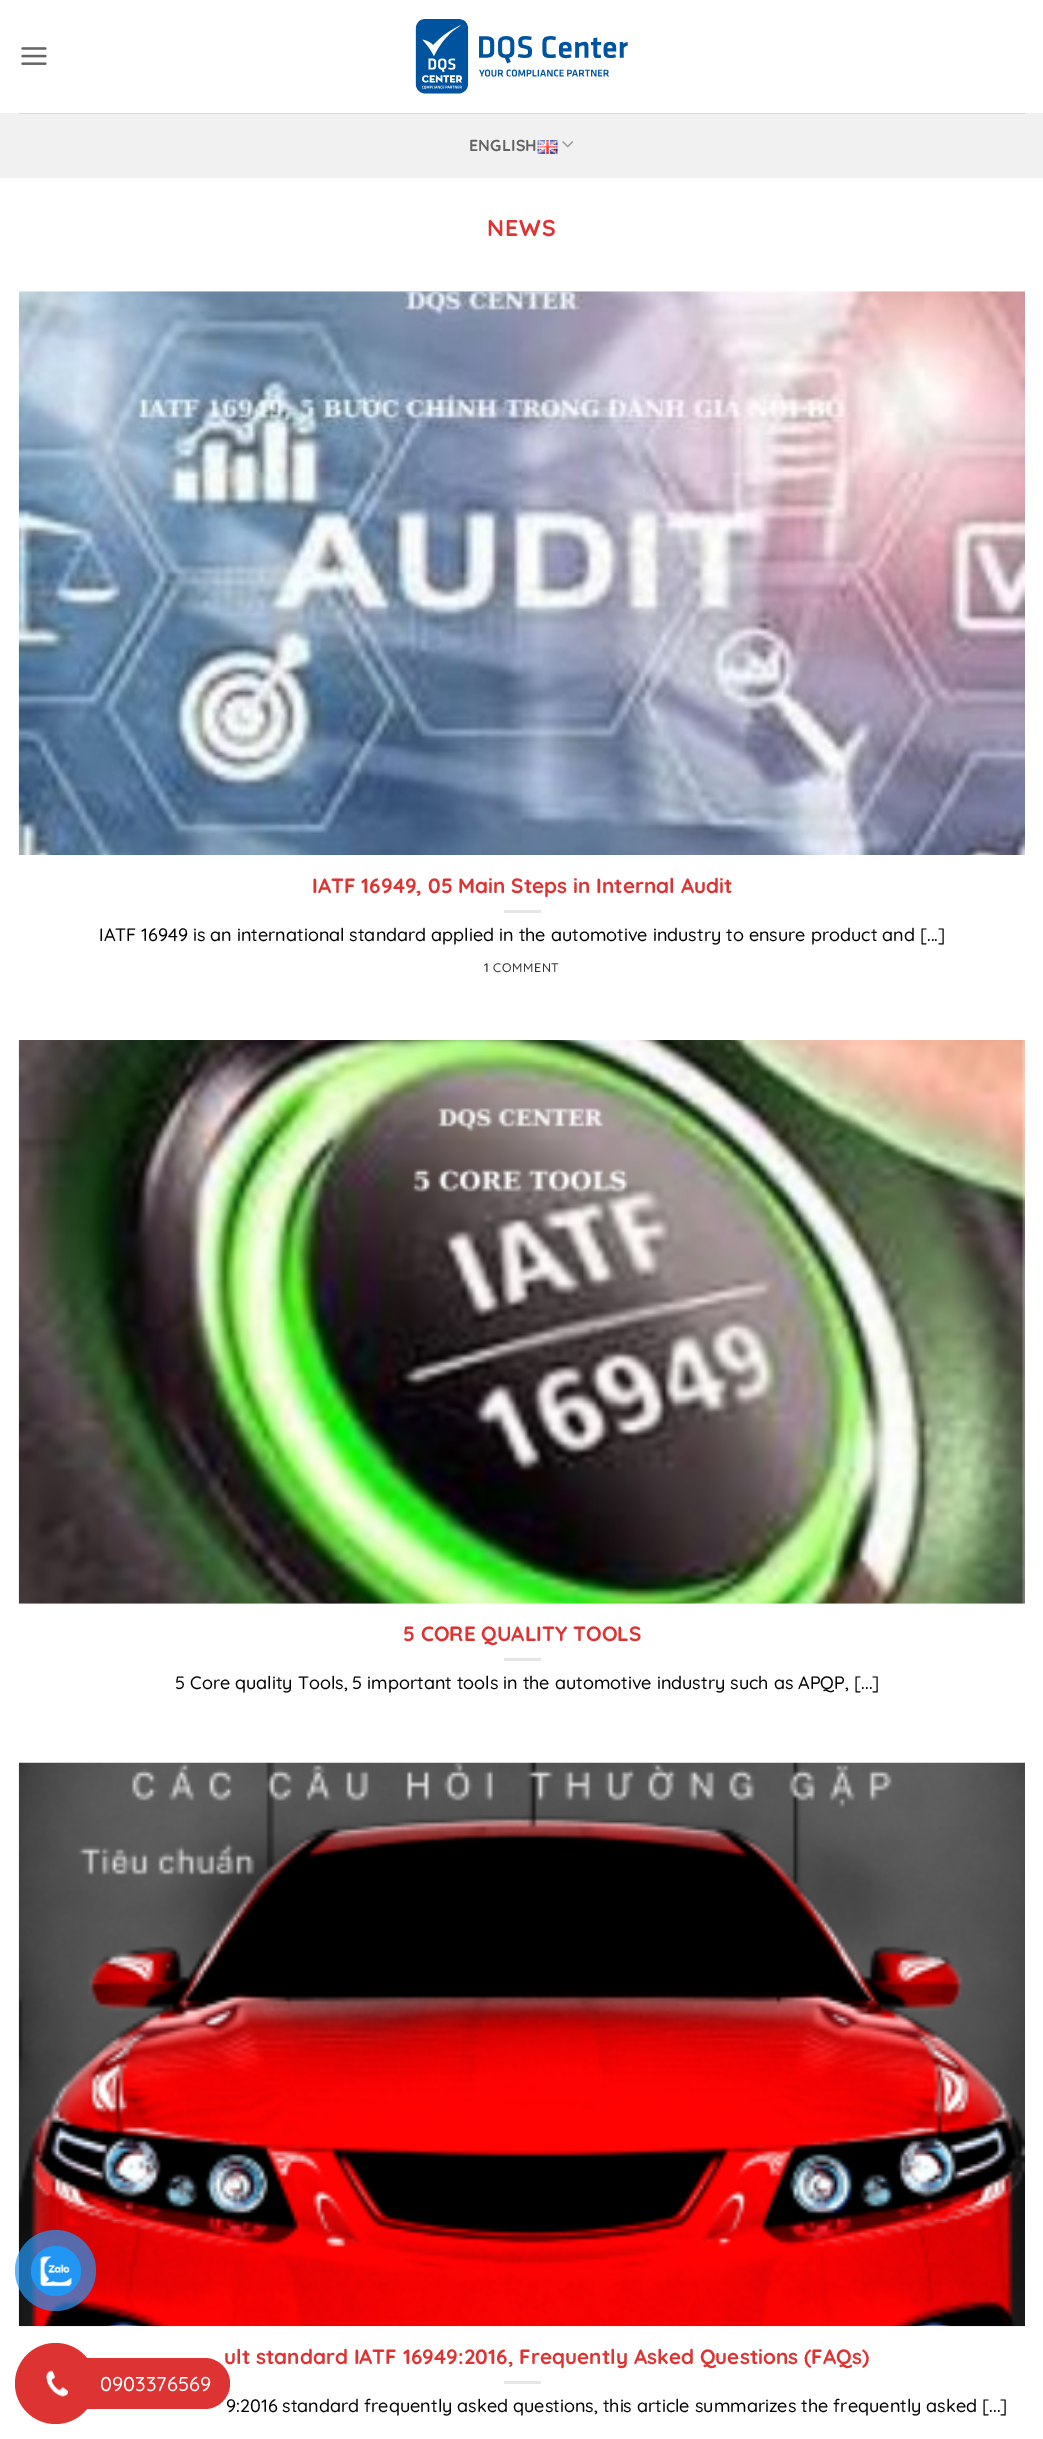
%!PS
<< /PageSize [1043 2439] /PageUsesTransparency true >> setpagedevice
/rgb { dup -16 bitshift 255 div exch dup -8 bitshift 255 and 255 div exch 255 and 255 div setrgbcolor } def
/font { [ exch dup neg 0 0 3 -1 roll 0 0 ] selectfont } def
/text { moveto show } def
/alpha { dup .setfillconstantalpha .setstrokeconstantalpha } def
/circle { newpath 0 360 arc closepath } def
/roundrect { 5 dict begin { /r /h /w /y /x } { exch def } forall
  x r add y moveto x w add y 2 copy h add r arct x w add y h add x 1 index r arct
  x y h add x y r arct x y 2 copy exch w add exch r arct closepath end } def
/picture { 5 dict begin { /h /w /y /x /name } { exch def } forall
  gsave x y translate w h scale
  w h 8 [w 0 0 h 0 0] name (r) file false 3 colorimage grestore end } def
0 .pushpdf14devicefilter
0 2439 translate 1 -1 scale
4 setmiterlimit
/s1 { /Quicksand-Bold 20.7 font 16#DD3333 rgb } def
/s2 { /Quicksand-Medium 18 font 16#000000 rgb } def
/s3 { /Quicksand-Medium 20 font 16#FFFFFF rgb } def
16#FFFFFF rgb
0 0 1043 2439 rectfill
(pic1.raw) 21 47 26 18 picture
(pic2.raw) 415 19 213 75 picture
16#F1F1F1 rgb
0 113 1043 65 rectfill
16#D9D9D9 rgb
19 113 1006 1 rectfill
/Quicksand-Bold 16 font
16#636363 rgb
469 151 moveto 0.25 0 (ENGLISH) ashow
(pic3.raw) 537 140 21 14 picture
(pic4.raw) 562 141 12 7 picture
/Quicksand-Bold 23 font
16#DD3333 rgb
487 236 moveto 1 0 (NEWS) ashow
(pic5.raw) 18 291 1007 564 picture
s1
(IATF 16949, 05 Main Steps in Internal Audit) 312 893 text
16#E6E6E6 rgb
504 910 37 3 rectfill
s2
(IATF 16949 is an international standard applied in the automotive industry to ensure product and [...]) 99 941 text
/Quicksand-Medium 12.5 font
16#333333 rgb
484 972 moveto 0.6 0 (1 COMMENT) ashow
(pic6.raw) 18 1040 1007 564 picture
s1
(5 CORE QUALITY TOOLS) 403 1641 text
16#E6E6E6 rgb
504 1658 37 3 rectfill
s2
(5 Core quality Tools, 5 important tools in the automotive industry such as APQP, [...]) 175 1689 text
(pic7.raw) 18 1762 1007 565 picture
s1
(ult standard IATF 16949:2016, Frequently Asked Questions \(FAQs\)) 224 2364 text
16#E6E6E6 rgb
504 2381 37 3 rectfill
s2
(9:2016 standard frequently asked questions, this article summarizes the frequently asked [...]) 226 2412 text
0.7 alpha
16#2196F3 rgb
55.5 2270.5 40.5 circle fill
1 alpha
56 2271 25 circle fill
(pic8.raw) 39 2256 33 31 picture
16#DD3333 rgb
38 2358 192 51 25.5 roundrect fill
55.5 2383.5 40.5 circle fill
(pic9.raw) 46 2370 22 27 picture
s3
(0903376569) 100 2391 text
.poppdf14devicefilter showpage
